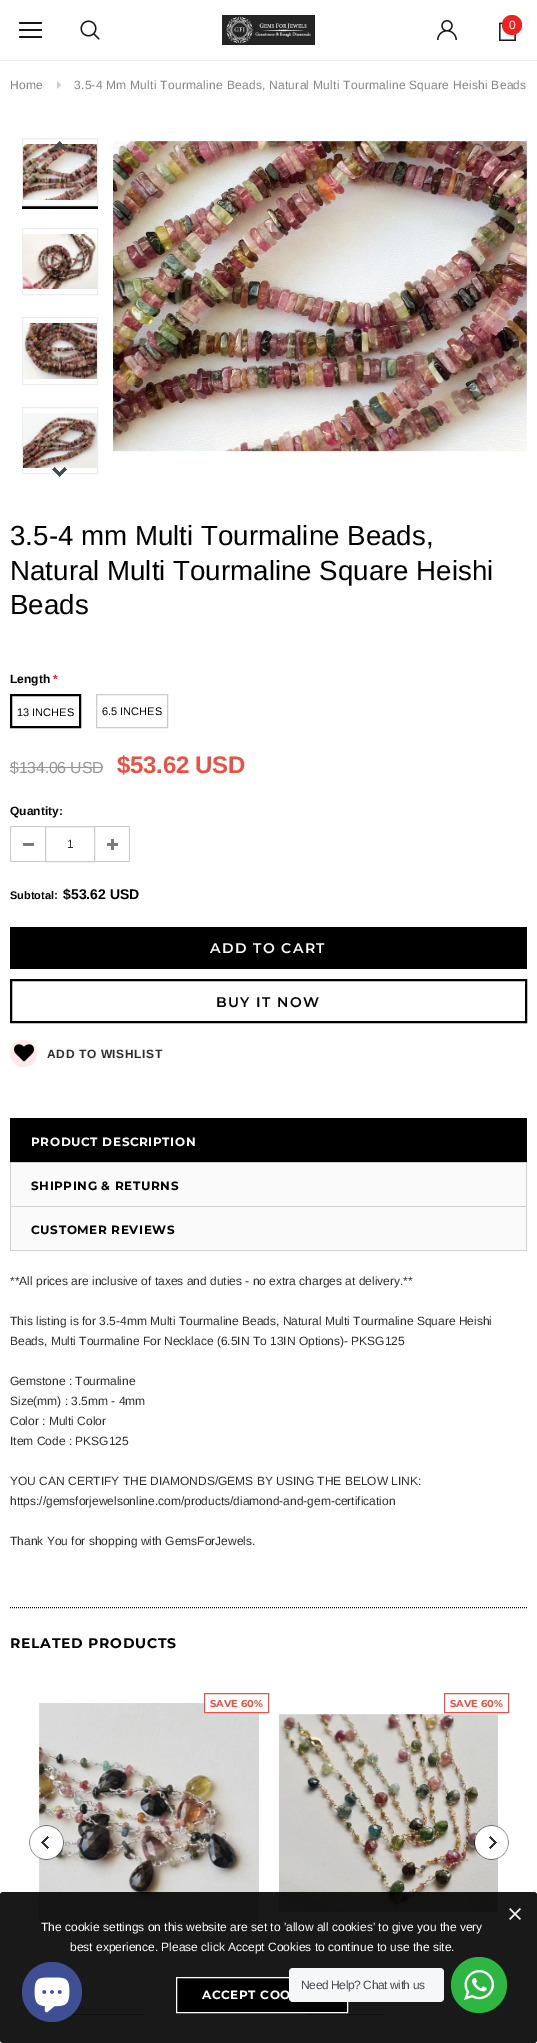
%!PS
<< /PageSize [537 2043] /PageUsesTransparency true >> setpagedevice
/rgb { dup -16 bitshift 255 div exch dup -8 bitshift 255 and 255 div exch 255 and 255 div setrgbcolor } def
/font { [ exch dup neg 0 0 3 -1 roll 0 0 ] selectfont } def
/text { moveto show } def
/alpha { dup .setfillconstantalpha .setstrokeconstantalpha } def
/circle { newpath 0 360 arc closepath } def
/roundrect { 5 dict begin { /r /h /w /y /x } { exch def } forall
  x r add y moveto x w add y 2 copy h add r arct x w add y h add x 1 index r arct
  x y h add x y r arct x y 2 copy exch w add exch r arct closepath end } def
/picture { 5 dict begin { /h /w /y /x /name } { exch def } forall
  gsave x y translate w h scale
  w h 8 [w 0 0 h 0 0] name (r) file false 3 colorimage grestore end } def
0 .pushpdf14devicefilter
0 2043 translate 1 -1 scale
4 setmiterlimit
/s1 { /Arimo-Regular 27.7 font 16#000000 rgb } def
/s2 { /Arimo-Bold 12 font 16#000000 rgb } def
/s3 { /Arimo-Bold 12 font 16#F1152F rgb } def
/s4 { /Arimo-Regular 11 font 16#000000 rgb } def
/s5 { /Arimo-Regular 12 font 16#2D2D2D rgb } def
/s6 { /Arimo-Bold 11 font 16#000000 rgb } def
/s7 { /Arimo-Bold 14 font 16#000000 rgb } def
/s8 { /Montserrat-Bold 10 font 16#E95144 rgb } def
/s9 { /Arimo-Regular 12 font 16#FFFFFF rgb } def
16#FFFFFF rgb
0 0 537 2043 rectfill
16#EBEBEB rgb
0 60 537 1 rectfill
16#161616 rgb
19 29 23 2 1 roundrect fill
19 22 23 2 1 roundrect fill
19 36 23 2 1 roundrect fill
(pic1.raw) 80 20 20 20 picture
(pic2.raw) 222 15 93 30 picture
(pic3.raw) 437 20 20 20 picture
(pic4.raw) 499 20 17 21 picture
16#F02121 rgb
512 25 10 circle fill
/Arimo-Regular 12 font
16#FFFFFF rgb
509 29 moveto 0.25 0 (0) ashow
16#848484 rgb
10 89 moveto 0.25 0 (Home) ashow
16#CBCBCB rgb
57 89 moveto 57 81 lineto 61 85 lineto closepath fill
16#848484 rgb
74 89 moveto 0.25 0 (3.5-4 Mm Multi Tourmaline Beads, Natural Multi Tourmaline Square Heishi Beads) ashow
16#000000 rgb
22 206 76 3 rectfill
16#ECECEC rgb
22.5 138.5 75 67 rectstroke
(pic5.raw) 23 144 74 56 picture
22.5 228.5 75 66 rectstroke
(pic6.raw) 23 234 74 55 picture
22.5 317.5 75 67 rectstroke
(pic7.raw) 23 323 74 56 picture
22.5 407.5 75 66 rectstroke
(pic8.raw) 23 413 74 55 picture
(pic9.raw) 52 141 15 10 picture
(pic10.raw) 52 467 15 10 picture
(pic11.raw) 113 141 414 311 picture
s1
(3.5-4 mm Multi Tourmaline Beads,) 10 545 text
(Natural Multi Tourmaline Square Heishi) 10 580 text
(Beads) 10 614 text
s2
(Length) 10 683 text
s3
(*) 53 683 text
16#000000 rgb
2 setlinewidth
11 695 69 32 rectstroke
s4
(13 INCHES) 17 716 text
16#CBCBCB rgb
1 setlinewidth
96.5 694.5 71 33 rectstroke
s4
(6.5 INCHES) 102 715 text
/Arimo-Regular 16 font
16#969696 rgb
10 773 moveto -0.25 0 ($134.06 USD) ashow
10 767 93 1 rectfill
/Arimo-Bold 24 font
16#E95144 rgb
117 773 moveto -0.25 0 ($53.62 USD) ashow
s2
(Quantity:) 10 815 text
16#7B7B7B rgb
23 843 11 3 rectfill
16#CBCBCB rgb
10 826 35 1 rectfill
10 861 35 1 rectfill
10 826 1 36 rectfill
45.5 826.5 49 35 rectstroke
s5
(1) 67 848 text
(pic12.raw) 107 839 11 11 picture
16#CBCBCB rgb
95 826 35 1 rectfill
129 826 1 36 rectfill
95 861 35 1 rectfill
s6
(Subtotal) 10 899 text
s2
(:) 54 899 text
s7
($53.62 USD) 63 899 text
10 927 517 42 rectfill
/Montserrat-SemiBold 14 font
16#FFFFFF rgb
210 953 moveto 1.4 0 (ADD TO CART) ashow
16#000000 rgb
2 setlinewidth
11 980 515 42 rectstroke
216 1007 moveto 1.4 0 (BUY IT NOW) ashow
16#FFE8E8 rgb
23.5 1053.5 13.5 circle fill
(pic13.raw) 14 1044 20 18 picture
/Arimo-Bold 12 font
16#2D2D2D rgb
47 1058 moveto 0.6 0 (ADD TO WISHLIST) ashow
16#D0D0D0 rgb
10 1250 517 1 rectfill
16#000000 rgb
10 1118 517 44 rectfill
/Montserrat-Bold 12 font
16#FFFFFF rgb
31 1146 moveto 0.6 0 (PRODUCT DESCRIPTION) ashow
16#FAFAFA rgb
11 1163 515 43 rectfill
16#D0D0D0 rgb
10 1162 517 1 rectfill
526 1162 1 44 rectfill
10 1162 1 44 rectfill
16#000000 rgb
31 1190 moveto 0.6 0 (SHIPPING & RETURNS) ashow
16#FAFAFA rgb
11 1207 515 43 rectfill
16#D0D0D0 rgb
10 1206 517 1 rectfill
526 1206 1 44 rectfill
10 1206 1 44 rectfill
16#000000 rgb
31 1234 moveto 0.6 0 (CUSTOMER REVIEWS) ashow
s5
(**All prices are inclusive of taxes and duties - no extra charges at delivery.**) 10 1285 text
(This listing is for 3.5-4mm Multi Tourmaline Beads, Natural Multi Tourmaline Square Heishi) 10 1325 text
(Beads, Multi Tourmaline For Necklace \(6.5IN To 13IN Options\)- PKSG125) 10 1345 text
(Gemstone : Tourmaline) 10 1385 text
(Size\(mm\) : 3.5mm - 4mm) 10 1405 text
(Color : Multi Color) 10 1425 text
(Item Code : PKSG125) 10 1445 text
(YOU CAN CERTIFY THE DIAMONDS/GEMS BY USING THE BELOW LINK:) 10 1485 text
(https://gemsforjewelsonline.com/products/diamond-and-gem-certification) 10 1505 text
(Thank You for shopping with GemsForJewels.) 10 1545 text
16#000000 rgb
1 setlinewidth
[1 1] 0 setdash
10 1607.5 moveto 527 1607.5 lineto stroke
/Montserrat-Bold 14 font
10 1648 moveto 0.75 0 (RELATED PRODUCTS) ashow
(pic14.raw) 39 1703 220 220 picture
16#FFFFFF rgb
205 1703 54 9 rectfill
16#E95144 rgb
[] 0 setdash
204.5 1693.5 64 19 rectstroke
s8
(SAVE 60%) 210 1707 text
16#969696 rgb
66 2014 78 1 rectfill
16#E95144 rgb
444.5 1693.5 64 19 rectstroke
(SAVE 60%) 450 1707 text
(pic15.raw) 279 1714 219 199 picture
16#969696 rgb
306 2014 78 1 rectfill
(pic16.raw) 29 1825 35 35 picture
(pic17.raw) 474 1825 35 35 picture
0.9 alpha
16#000000 rgb
0 1892 537 151 3 roundrect fill
1 alpha
(pic18.raw) 509 1908 12 12 picture
s9
(The cookie settings on this website are set to 'allow all cookies' to give you the very) 41 1931 text
(best experience. Please click Accept Cookies to continue to use the site.) 70 1951 text
16#000000 rgb
176.5 1977.5 moveto 347.5 1977.5 lineto 347.5 2012.5 lineto 176.5 2012.5 lineto closepath gsave fill grestore
16#FFFFFF rgb
stroke
/Montserrat-Bold 12 font
202 1999 moveto 0.6 0 (ACCEPT COO) ashow
16#3F4F93 rgb
52 1992 30 circle fill
(pic19.raw) 34 1977 36 36 picture
16#F5F7F9 rgb
289 1968 155 34 4 roundrect fill
/LiberationSans-Regular 12 font
16#43474E rgb
301 1989 moveto -0.4 0 (Need Help? Chat with us) ashow
16#2DB742 rgb
479 1985 28 circle fill
(pic20.raw) 464 1970 30 30 picture
.poppdf14devicefilter showpage
